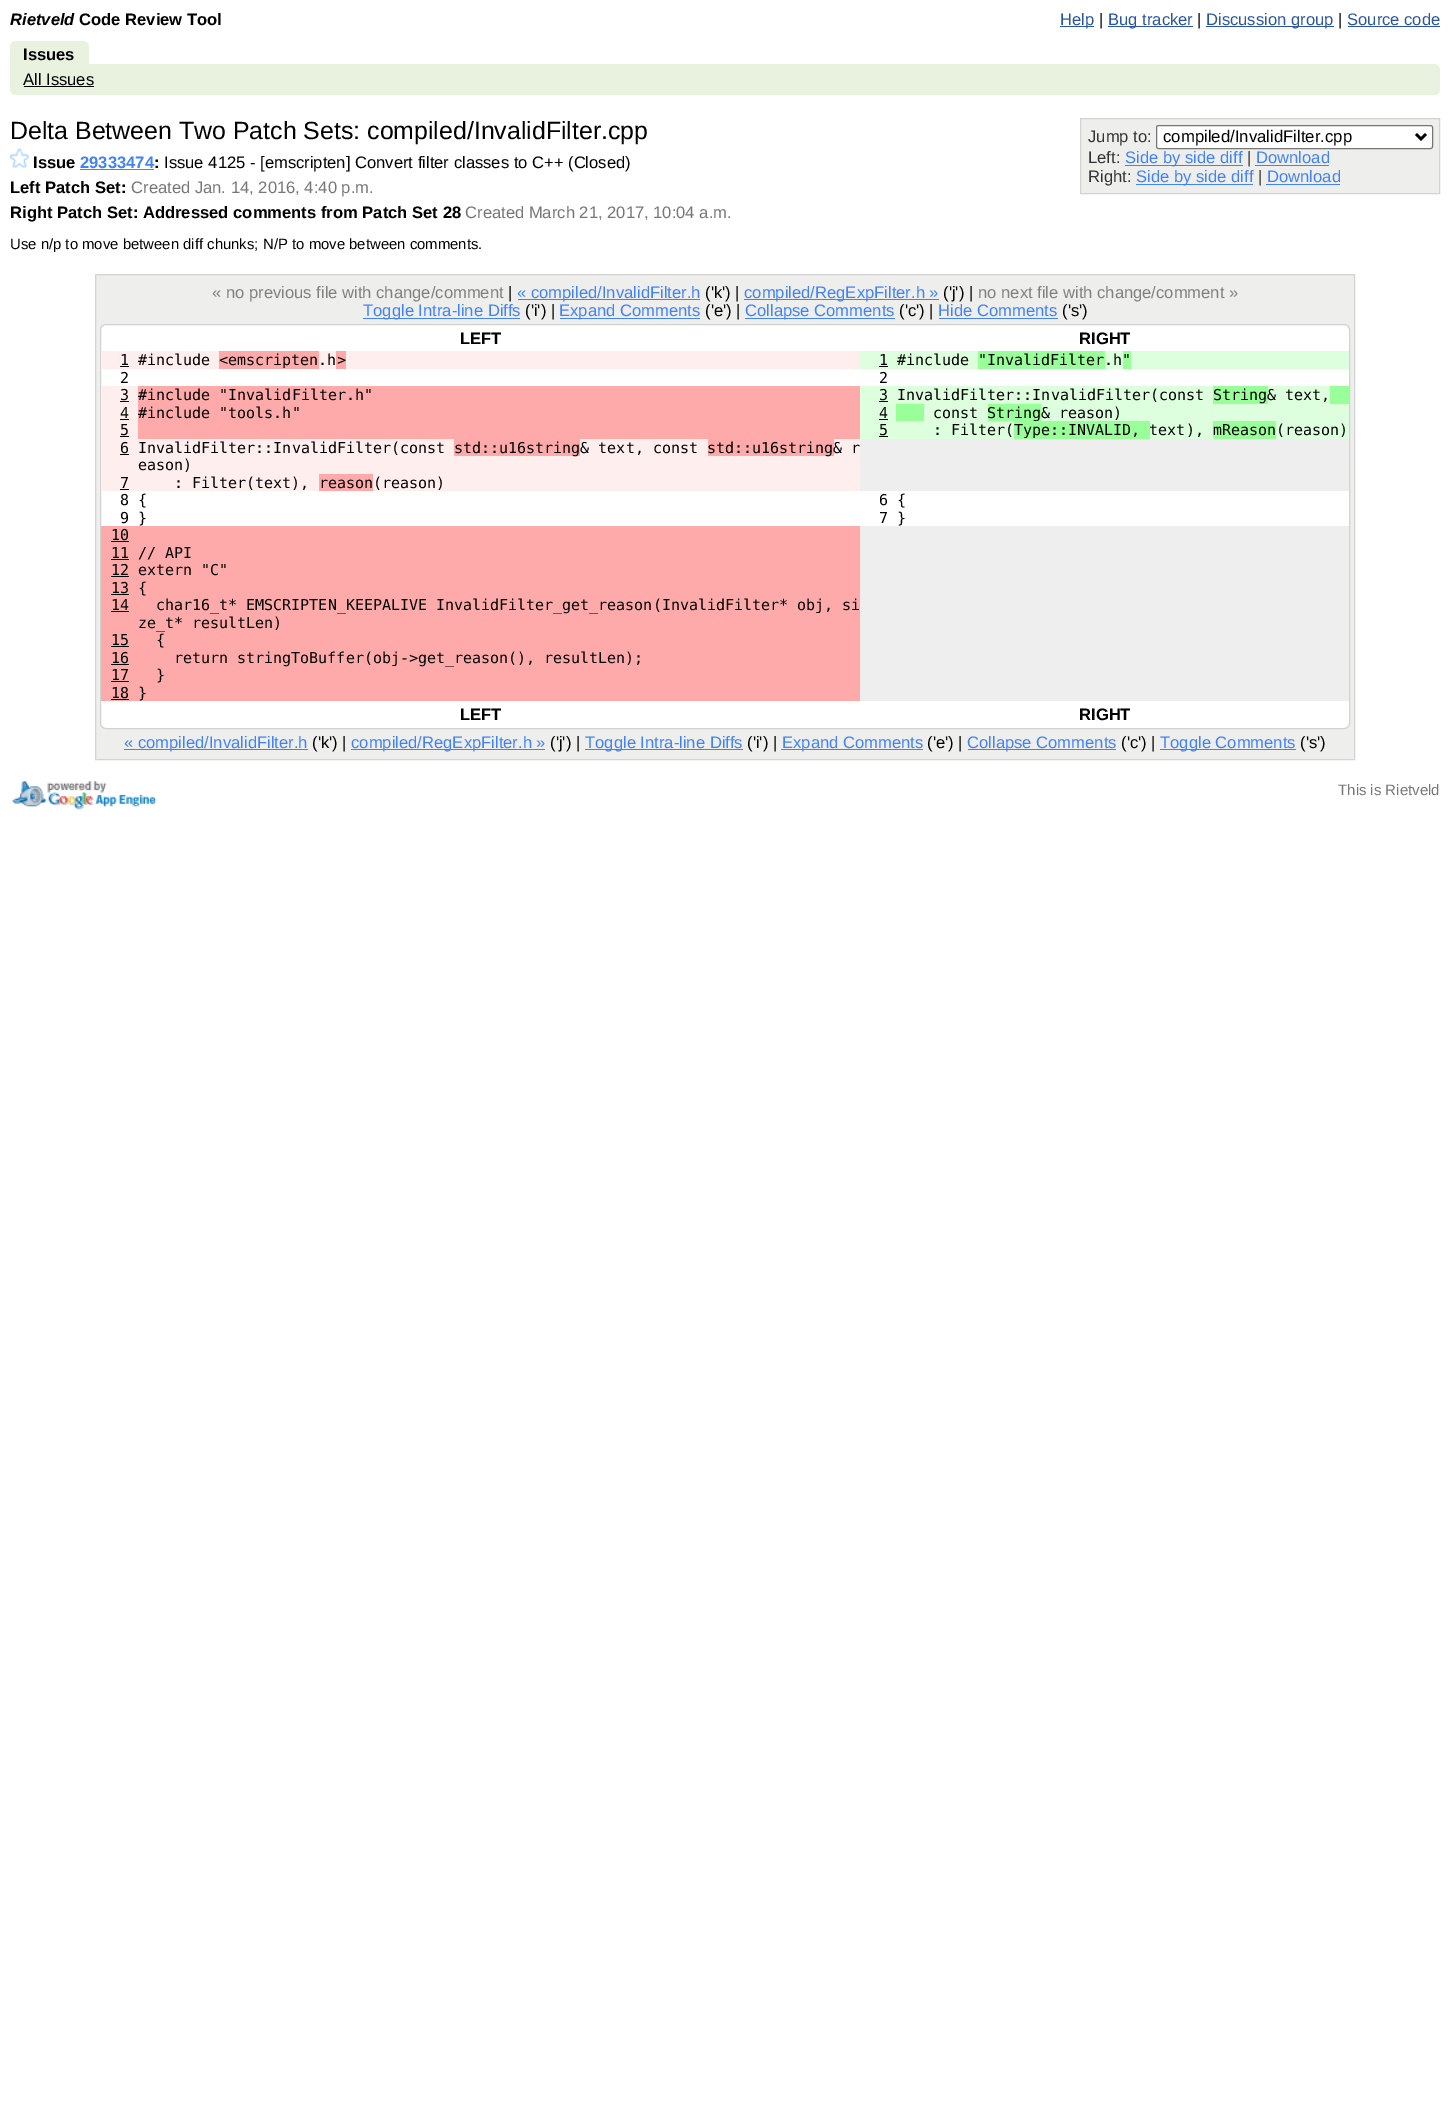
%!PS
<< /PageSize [1449 2104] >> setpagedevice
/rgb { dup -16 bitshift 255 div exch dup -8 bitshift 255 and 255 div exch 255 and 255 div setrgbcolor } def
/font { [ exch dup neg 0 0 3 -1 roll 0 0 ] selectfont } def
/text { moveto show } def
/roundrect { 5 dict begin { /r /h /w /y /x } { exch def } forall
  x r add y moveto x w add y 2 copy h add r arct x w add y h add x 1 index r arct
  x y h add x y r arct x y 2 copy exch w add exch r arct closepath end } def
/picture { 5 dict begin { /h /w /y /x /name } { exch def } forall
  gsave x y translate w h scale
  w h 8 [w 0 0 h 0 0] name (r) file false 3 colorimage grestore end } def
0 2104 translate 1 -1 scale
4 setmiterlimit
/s1 { /LiberationSans-BoldItalic 16.6 font 16#000000 rgb } def
/s2 { /LiberationSans-Bold 16.6 font 16#000000 rgb } def
/s3 { /LiberationSans-Regular 16.6 font 16#2A55A3 rgb } def
/s4 { /LiberationSans-Regular 16.6 font 16#000000 rgb } def
/s5 { /LiberationSans-Regular 24.9 font 16#000000 rgb } def
/s6 { /LiberationSans-Bold 16.6 font 16#4182FA rgb } def
/s7 { /LiberationSans-Regular 16.6 font 16#777777 rgb } def
/s8 { /LiberationSans-Regular 14.9 font 16#000000 rgb } def
/s9 { /LiberationSans-Regular 16.6 font 16#333333 rgb } def
/s10 { /LiberationSans-Regular 16.75 font 16#000000 rgb } def
/s11 { /LiberationSans-Regular 16.6 font 16#4182FA rgb } def
/s12 { /LiberationSans-Regular 16.6 font 16#808080 rgb } def
/s13 { /DejaVuSansMono-Regular 15 font 16#000000 rgb } def
/s14 { /LiberationSans-Regular 15 font 16#777777 rgb } def
16#FFFFFF rgb
0 0 1449 2104 rectfill
s1
(Rietveld) 10 25 text
s2
(Code Review Tool) 79 25 text
16#2A55A3 rgb
1060 26 34 1 rectfill
s3
(Help) 1060 25 text
s4
(|) 1099 25 text
16#2A55A3 rgb
1108 26 85 1 rectfill
(Bug tracker) 1108 25 text
s4
(|) 1197 25 text
16#2A55A3 rgb
1206 26 128 1 rectfill
(Discussion group) 1206 25 text
s4
(|) 1338 25 text
s3
(Source code) 1347 25 text
1348 26 92 1 rectfill
16#E9F2DF rgb
16 41 moveto 83 41 lineto 86.5 41 89 43.5 89 47 curveto 89 64 lineto 10 64 lineto 10 47 lineto 10 43.5 12.5 41 16 41 curveto closepath fill
s2
(Issues) 23 60 text
16#E9F2DF rgb
10 64 moveto 1434 64 lineto 1437.5 64 1440 66.5 1440 70 curveto 1440 89 lineto 1440 92.5 1437.5 95 1434 95 curveto 16 95 lineto 12.5 95 10 92.5 10 89 curveto closepath fill
s4
(All Issues) 23 85 text
24 86 70 1 rectfill
s5
(Delta Between Two Patch Sets: compiled/InvalidFilter.cpp) 10 139 text
(pic1.raw) 10 148 19 20 picture
s2
(Issue) 33 168 text
s6
(29333474) 80 168 text
s2
(:) 154 168 text
16#4182FA rgb
80 169 74 1 rectfill
s4
(Issue 4125 - [emscripten] Convert filter classes to C++ \(Closed\)) 164 168 text
s2
(Left Patch Set:) 10 193 text
s7
(Created Jan. 14, 2016, 4:40 p.m.) 131 193 text
s2
(Right Patch Set: Addressed comments from Patch Set 28) 10 218 text
s7
(Created March 21, 2017, 10:04 a.m.) 465 218 text
s8
(Use n/p to move between diff chunks;) 10 249 text
(N/P to move between comments.) 263 249 text
16#EEEEEC rgb
1080.5 118.5 moveto 1439.5 118.5 lineto 1439.5 193.5 lineto 1080.5 193.5 lineto closepath gsave fill grestore
16#D3D3D3 rgb
stroke
s9
(Jump to:) 1088 142 text
16#FFFFFF rgb
1156.5 125.5 276 23 2 roundrect gsave fill grestore
16#767676 rgb
stroke
16#000000 rgb
2.5 setlinewidth
1416 134 moveto 1421 139 lineto 1426 134 lineto stroke
s10
(compiled/InvalidFilter.cpp) 1163 142 text
s9
(Left:) 1088 163 text
16#4182FA rgb
1125 165 118 1 rectfill
(Side by side diff) 1125 163 text
s9
(|) 1247 163 text
s11
(Download) 1256 163 text
1255 165 74 1 rectfill
s9
(Right:) 1088 182 text
16#4182FA rgb
1136 184 117 1 rectfill
(Side by side diff) 1136 182 text
s9
(|) 1258 182 text
s11
(Download) 1267 182 text
1266 184 74 1 rectfill
16#EEEEEC rgb
95.5 274.5 moveto 1354.5 274.5 lineto 1354.5 759.5 lineto 95.5 759.5 lineto closepath gsave fill grestore
16#D3D3D3 rgb
1 setlinewidth
stroke
s12
(« no previous file with change/comment) 212 298 text
s4
(|) 508 298 text
16#4182FA rgb
518 299 182 1 rectfill
(« compiled/InvalidFilter.h) 517 298 text
s4
(\('k'\) |) 705 298 text
16#4182FA rgb
744 299 195 1 rectfill
(compiled/RegExpFilter.h ») 744 298 text
s4
(\('j'\) |) 943 298 text
s12
(no next file with change/comment ») 978 298 text
16#4182FA rgb
363 318 157 1 rectfill
(Toggle Intra-line Diffs) 363 316 text
s4
(\('i'\) |) 525 316 text
16#4182FA rgb
560 318 140 1 rectfill
(Expand Comments) 559 316 text
s4
(\('e'\) |) 705 316 text
16#4182FA rgb
745 318 150 1 rectfill
(Collapse Comments) 745 316 text
s4
(\('c'\) |) 899 316 text
s11
(Hide Comments) 938 316 text
939 318 119 1 rectfill
s4
(\('s'\)) 1062 316 text
16#FFFFFF rgb
100.5 324.5 1249 404 5.5 roundrect gsave fill grestore
16#D3D3D3 rgb
stroke
s2
(LEFT) 460 344 text
(RIGHT) 1079 344 text
16#FFEEEE rgb
101 351 759 18 rectfill
s13
(1 #include) 120 365 text
120 366 9 1 rectfill
16#FFAAAA rgb
219 351 100 18 rectfill
s13
(<emscripten.h) 219 365 text
16#FFAAAA rgb
336 351 10 18 rectfill
s13
(>) 337 365 text
16#DDFFDD rgb
860 351 489 18 rectfill
s13
(1 #include) 879 365 text
879 366 9 1 rectfill
16#99FF99 rgb
978 351 127 18 rectfill
s13
("InvalidFilter.h) 978 365 text
16#99FF99 rgb
1123 351 8 18 rectfill
s13
(") 1122 365 text
(2) 120 383 text
(2) 879 383 text
16#FFAAAA rgb
138 386 722 53 rectfill
16#FFEEEE rgb
101 386 37 18 rectfill
s13
(3 #include "InvalidFilter.h") 120 400 text
120 401 9 1 rectfill
16#99FF99 rgb
1213 386 136 18 rectfill
16#DDFFDD rgb
860 386 353 18 rectfill
16#000000 rgb
879 401 9 1 rectfill
(3 InvalidFilter::InvalidFilter\(const String) 879 400 text
16#DDFFDD rgb
1268 386 62 18 rectfill
s13
(& text,) 1267 400 text
16#FFEEEE rgb
101 404 37 17 rectfill
s13
(4 #include "tools.h") 120 418 text
120 419 9 1 rectfill
16#DDFFDD rgb
860 404 489 35 rectfill
s13
(4) 879 418 text
879 419 9 1 rectfill
16#99FF99 rgb
896 404 28 17 rectfill
s13
(const) 933 418 text
16#99FF99 rgb
988 404 53 17 rectfill
s13
(String& reason\)) 987 418 text
16#FFEEEE rgb
101 421 37 18 rectfill
s13
(5) 120 435 text
120 436 9 1 rectfill
(5) 879 435 text
879 436 9 1 rectfill
(: Filter\() 933 435 text
16#99FF99 rgb
1014 421 136 18 rectfill
s13
(Type::INVALID, text\),) 1014 435 text
16#99FF99 rgb
1213 421 63 18 rectfill
s13
(mReason\(reason\)) 1213 435 text
16#FFEEEE rgb
101 439 759 52 rectfill
16#000000 rgb
120 454 9 1 rectfill
(6 InvalidFilter::InvalidFilter\(const) 120 453 text
16#FFAAAA rgb
454 439 126 17 rectfill
s13
(std::u16string& text, const) 454 453 text
16#FFAAAA rgb
708 439 126 17 rectfill
s13
(std::u16string& r) 707 453 text
(eason\)) 138 470 text
16#EEEEEE rgb
860 439 489 52 rectfill
s13
(7) 120 488 text
120 489 9 1 rectfill
(: Filter\(text\),) 174 488 text
16#FFAAAA rgb
319 474 54 17 rectfill
s13
(reason\(reason\)) 319 488 text
(8 {) 120 505 text
(6 {) 879 505 text
(9 }) 120 523 text
(7 }) 879 523 text
16#FFAAAA rgb
101 526 759 175 rectfill
s13
(10) 111 540 text
111 541 18 1 rectfill
16#EEEEEE rgb
860 526 489 175 rectfill
16#000000 rgb
111 559 18 1 rectfill
(11 // API) 111 558 text
(12 extern "C") 111 575 text
111 576 18 1 rectfill
111 594 18 1 rectfill
(13 {) 111 593 text
(14) 111 610 text
111 611 18 1 rectfill
(char16_t* EMSCRIPTEN_KEEPALIVE InvalidFilter_get_reason\(InvalidFilter* obj, si) 156 610 text
(ze_t* resultLen\)) 138 628 text
(15) 111 645 text
111 646 18 1 rectfill
({) 156 645 text
(16) 111 663 text
111 664 18 1 rectfill
(return stringToBuffer\(obj->get_reason\(\), resultLen\);) 174 663 text
(17) 111 680 text
111 681 18 1 rectfill
(}) 156 680 text
111 699 18 1 rectfill
(18 }) 111 698 text
s2
(LEFT) 460 720 text
(RIGHT) 1079 720 text
16#4182FA rgb
124 749 184 1 rectfill
s11
(« compiled/InvalidFilter.h) 124 748 text
s4
(\('k'\) |) 312 748 text
16#4182FA rgb
351 749 194 1 rectfill
(compiled/RegExpFilter.h ») 351 748 text
s4
(\('j'\) |) 550 748 text
16#4182FA rgb
585 749 158 1 rectfill
(Toggle Intra-line Diffs) 585 748 text
s4
(\('i'\) |) 747 748 text
16#4182FA rgb
781 749 142 1 rectfill
(Expand Comments) 782 748 text
s4
(\('e'\) |) 927 748 text
16#4182FA rgb
968 749 148 1 rectfill
(Collapse Comments) 967 748 text
s4
(\('c'\) |) 1121 748 text
16#4182FA rgb
1160 749 136 1 rectfill
(Toggle Comments) 1160 748 text
s4
(\('s'\)) 1300 748 text
(pic2.raw) 12 781 145 29 picture
s14
(This is Rietveld) 1338 795 text
showpage
